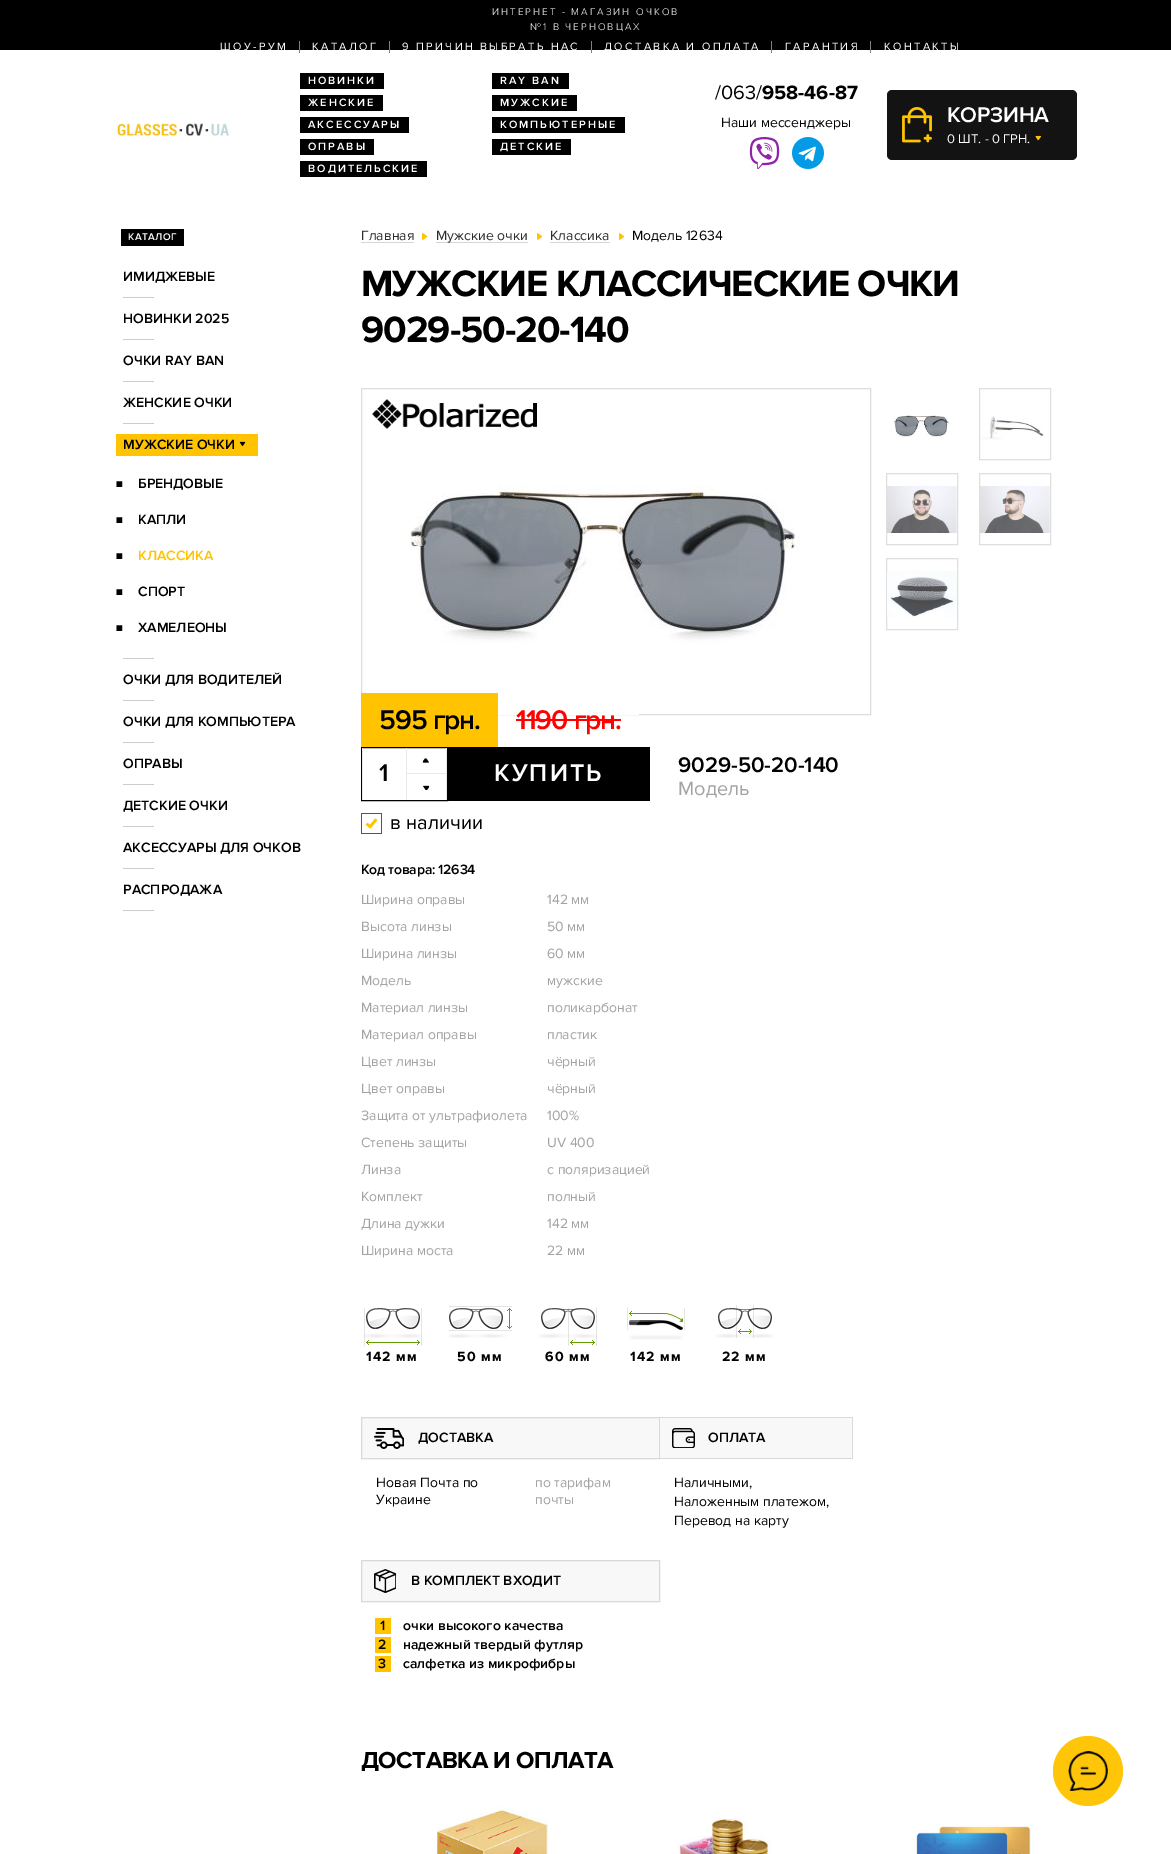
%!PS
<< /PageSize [1171 1854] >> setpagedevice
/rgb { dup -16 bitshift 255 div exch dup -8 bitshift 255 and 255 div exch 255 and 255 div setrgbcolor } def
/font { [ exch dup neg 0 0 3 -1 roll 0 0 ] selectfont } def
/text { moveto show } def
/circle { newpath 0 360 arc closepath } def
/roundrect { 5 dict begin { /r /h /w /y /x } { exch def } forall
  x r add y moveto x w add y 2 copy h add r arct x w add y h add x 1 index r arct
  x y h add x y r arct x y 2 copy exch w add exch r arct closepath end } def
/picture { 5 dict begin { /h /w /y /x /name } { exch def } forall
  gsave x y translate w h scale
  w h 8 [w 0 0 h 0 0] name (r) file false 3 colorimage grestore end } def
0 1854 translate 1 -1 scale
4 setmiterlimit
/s1 { /ProximaNova-Regular 20 font 16#000000 rgb } def
/s2 { /ProximaNova-Bold 20 font 16#000000 rgb } def
/s3 { /ProximaNova-Regular 14 font 16#000000 rgb } def
/s4 { /ProximaNova-Regular 13 font 16#FFFFFF rgb } def
/s5 { /ProximaNova-SemiBold 14 font 16#000000 rgb } def
/s6 { /ProximaNova-SemiBold 10 font 16#000000 rgb } def
/s7 { /ProximaNova-SemiBold 14 font 16#FFC300 rgb } def
/s8 { /ProximaNova-Regular 14 font 16#2C2C2C rgb } def
/s9 { /ProximaNova-SemiBold 25 font 16#000000 rgb } def
/s10 { /ProximaNova-SemiBold 22 font 16#000000 rgb } def
/s11 { /ProximaNova-Regular 20 font 16#A3A3A3 rgb } def
/s12 { /ProximaNova-Regular 14 font 16#A3A3A3 rgb } def
16#FFFFFF rgb
0 0 1171 1854 rectfill
16#000000 rgb
0 0 1171 50 rectfill
/ProximaNova-Light 10 font
16#FFFFFF rgb
492 15 moveto 2 0 (ИНТЕРНЕТ - МАГАЗИН ОЧКОВ) ashow
530 30 moveto 2 0 (№1 В ЧЕРНОВЦАХ) ashow
/ProximaNova-Regular 11 font
220 50 moveto 2.4 0 (ШОУ-РУМ) ashow
16#808080 rgb
299 41 1 12 rectfill
16#FFFFFF rgb
312 50 moveto 2.4 0 (КАТАЛОГ) ashow
16#808080 rgb
389 41 1 12 rectfill
16#FFFFFF rgb
402 50 moveto 2.4 0 (9 ПРИЧИН ВЫБРАТЬ НАС) ashow
16#808080 rgb
591 41 1 12 rectfill
16#FFFFFF rgb
604 50 moveto 2.4 0 (ДОСТАВКА И ОПЛАТА) ashow
16#808080 rgb
771 41 1 12 rectfill
16#FFFFFF rgb
785 50 moveto 2.4 0 (ГАРАНТИЯ) ashow
16#808080 rgb
870 41 1 12 rectfill
16#FFFFFF rgb
884 50 moveto 2.4 0 (КОНТАКТЫ) ashow
(pic1.raw) 117 123 112 13 picture
16#000000 rgb
300 73 84 16 rectfill
/ProximaNova-SemiBold 11 font
16#FFFFFF rgb
308 84 moveto 2 0 (НОВИНКИ) ashow
16#000000 rgb
492 73 77 16 rectfill
16#FFFFFF rgb
500 84 moveto 2 0 (RAY BAN) ashow
16#000000 rgb
300 95 83 16 rectfill
16#FFFFFF rgb
308 106 moveto 2 0 (ЖЕНСКИЕ) ashow
16#000000 rgb
492 95 85 16 rectfill
16#FFFFFF rgb
500 106 moveto 2 0 (МУЖСКИЕ) ashow
16#000000 rgb
300 117 109 16 rectfill
16#FFFFFF rgb
308 128 moveto 2 0 (АКСЕССУАРЫ) ashow
16#000000 rgb
492 117 133 16 rectfill
16#FFFFFF rgb
500 128 moveto 2 0 (КОМПЬЮТЕРНЫЕ) ashow
16#000000 rgb
300 139 74 16 rectfill
16#FFFFFF rgb
308 150 moveto 2 0 (ОПРАВЫ) ashow
16#000000 rgb
492 139 79 16 rectfill
16#FFFFFF rgb
500 150 moveto 2 0 (ДЕТСКИЕ) ashow
16#000000 rgb
300 161 127 16 rectfill
16#FFFFFF rgb
308 172 moveto 2 0 (ВОДИТЕЛЬСКИЕ) ashow
s1
(/063/) 715 99 text
s2
(958-46-87) 762 99 text
s3
(Наши мессенджеры) 721 127 text
(pic2.raw) 749 137 31 32 picture
(pic3.raw) 792 137 32 32 picture
16#131313 rgb
887 90 190 70 5 roundrect fill
(pic4.raw) 902 107 30 36 picture
/ProximaNova-SemiBold 22 font
16#FFFFFF rgb
947 122 moveto -0.25 0 (КОРЗИНА) ashow
s4
(0 ШТ. - 0 ГРН.) 947 143 text
(pic5.raw) 1035 135 6 6 picture
16#000000 rgb
121 229 63 17 rectfill
/ProximaNova-SemiBold 10 font
16#FFFFFF rgb
128 240 moveto 0.5 0 (КАТАЛОГ) ashow
s5
(ИМИДЖЕВЫЕ) 123 281 text
16#CCCCCC rgb
123 297 31 1 rectfill
s5
(НОВИНКИ 2025) 123 323 text
16#CCCCCC rgb
123 339 31 1 rectfill
s5
(ОЧКИ RAY BAN) 123 365 text
16#CCCCCC rgb
123 381 31 1 rectfill
s5
(ЖЕНСКИЕ ОЧКИ) 123 407 text
16#CCCCCC rgb
123 423 31 1 rectfill
16#FFC300 rgb
116 434 142 22 rectfill
s5
(МУЖСКИЕ ОЧКИ) 123 449 text
(pic6.raw) 239 441 7 5 picture
s6
(■) 116 487 text
s5
(БРЕНДОВЫЕ) 138 488 text
s6
(■) 116 523 text
s5
(КАПЛИ) 138 524 text
s6
(■) 116 559 text
s7
(КЛАССИКА) 138 560 text
s6
(■) 116 595 text
s5
(СПОРТ) 138 596 text
s6
(■) 116 631 text
s5
(ХАМЕЛЕОНЫ) 138 632 text
16#CCCCCC rgb
123 658 31 1 rectfill
s5
(ОЧКИ ДЛЯ ВОДИТЕЛЕЙ) 123 684 text
16#CCCCCC rgb
123 700 31 1 rectfill
s5
(ОЧКИ ДЛЯ КОМПЬЮТЕРА) 123 726 text
16#CCCCCC rgb
123 742 31 1 rectfill
s5
(ОПРАВЫ) 123 768 text
16#CCCCCC rgb
123 784 31 1 rectfill
s5
(ДЕТСКИЕ ОЧКИ) 123 810 text
16#CCCCCC rgb
123 826 31 1 rectfill
s5
(АКСЕССУАРЫ ДЛЯ ОЧКОВ) 123 852 text
16#CCCCCC rgb
123 868 31 1 rectfill
s5
(РАСПРОДАЖА) 123 894 text
16#CCCCCC rgb
123 910 31 1 rectfill
16#D7D7D7 rgb
361 242 53 1 rectfill
s8
(Главная) 361 240 text
(pic7.raw) 422 233 6 7 picture
16#D7D7D7 rgb
436 242 92 1 rectfill
s8
(Мужские очки) 436 240 text
(pic8.raw) 537 233 5 7 picture
16#D7D7D7 rgb
550 242 60 1 rectfill
s8
(Классика) 550 240 text
(pic8.raw) 619 233 5 7 picture
s3
(Модель 12634) 632 240 text
/ProximaNova-Bold 38 font
361 296 moveto -1 0 (МУЖСКИЕ КЛАССИЧЕСКИЕ ОЧКИ) ashow
361 342 moveto -1 0 (9029-50-20-140) ashow
16#DDDDDD rgb
361.5 388.5 509 326 rectstroke
(pic9.raw) 372 399 165 30 picture
(pic10.raw) 410 485 391 159 picture
(pic11.raw) 894 415 55 22 picture
16#DFDFDF rgb
979.5 388.5 71 71 rectstroke
(pic12.raw) 981 416 63 24 picture
886.5 473.5 71 71 rectstroke
(pic13.raw) 887 486 70 47 picture
979.5 473.5 71 71 rectstroke
(pic14.raw) 980 486 70 47 picture
886.5 558.5 71 71 rectstroke
(pic15.raw) 887 571 70 47 picture
16#FFC300 rgb
361 693 137 54 rectfill
/ProximaNova-SemiBold 28 font
16#000000 rgb
379 729 moveto -1 0 (595 грн.) ashow
16#FFFFFF rgb
498 714 141 1 rectfill
16#FF0101 rgb
516 729 moveto -1 0 (1190 грн.) ashow
516 719 105 2 rectfill
16#000000 rgb
361.5 747.5 86 53 rectstroke
16#E9E9E9 rgb
406 748 1 52 rectfill
362 748 1 52 rectfill
s9
(1) 379 781 text
16#E9E9E9 rgb
446 748 1 52 rectfill
407 773 40 1 rectfill
(pic16.raw) 422 758 7 5 picture
(pic17.raw) 423 785 7 5 picture
16#000000 rgb
448 747 202 54 rectfill
16#FFFFFF rgb
494 781 moveto 2 0 (КУПИТЬ) ashow
s10
(9029-50-20-140) 678 772 text
s11
(Модель) 678 795 text
(pic18.raw) 361 813 21 21 picture
s1
(в наличии) 390 829 text
/ProximaNova-SemiBold 14 font
361 874 moveto -0.25 0 (Код товара: 12634) ashow
s12
(Ширина оправы) 361 904 text
(142 мм) 547 904 text
(Высота линзы) 361 931 text
(50 мм) 547 931 text
(Ширина линзы) 361 958 text
(60 мм) 547 958 text
(Модель) 361 985 text
(мужские) 547 985 text
(Материал линзы) 361 1012 text
(поликарбонат) 547 1012 text
(Материал оправы) 361 1039 text
(пластик) 547 1039 text
(Цвет линзы) 361 1066 text
(чёрный) 547 1066 text
(Цвет оправы) 361 1093 text
(чёрный) 547 1093 text
(Защита от ультрафиолета) 361 1120 text
(100%) 547 1120 text
(Степень защиты) 361 1147 text
(UV 400) 547 1147 text
(Линза) 361 1174 text
(с поляризацией) 547 1174 text
(Комплект) 361 1201 text
(полный) 547 1201 text
(Длина дужки) 361 1228 text
(142 мм) 547 1228 text
(Ширина моста) 361 1255 text
(22 мм) 547 1255 text
(pic19.raw) 363 1308 59 38 picture
/ProximaNova-Bold 14 font
16#000000 rgb
366 1361 moveto 1 0 (142 мм) ashow
(pic20.raw) 449 1306 63 32 picture
457 1361 moveto 1 0 (50 мм) ashow
(pic21.raw) 538 1308 59 38 picture
545 1361 moveto 1 0 (60 мм) ashow
(pic22.raw) 627 1308 58 32 picture
630 1361 moveto 1 0 (142 мм) ashow
(pic23.raw) 715 1305 59 33 picture
722 1361 moveto 1 0 (22 мм) ashow
16#F8F8F8 rgb
361.5 1417.5 moveto 659.5 1417.5 lineto 659.5 1458.5 lineto 361.5 1458.5 lineto closepath gsave fill grestore
16#D9D9D9 rgb
stroke
(pic24.raw) 374 1428 30 21 picture
s5
(ДОСТАВКА) 418 1442 text
s3
(Новая Почта по) 376 1487 text
(Украине) 376 1504 text
s12
(по тарифам) 535 1487 text
(почты) 535 1504 text
16#F8F8F8 rgb
660 1418 192 40 rectfill
16#D9D9D9 rgb
660 1417 193 1 rectfill
852 1417 1 42 rectfill
660 1458 193 1 rectfill
(pic25.raw) 672 1428 23 20 picture
s5
(ОПЛАТА) 708 1442 text
s3
(Наличными,) 674 1487 text
(Наложенным платежом,) 674 1506 text
(Перевод на карту) 674 1525 text
16#F8F8F8 rgb
361.5 1560.5 moveto 659.5 1560.5 lineto 659.5 1601.5 lineto 361.5 1601.5 lineto closepath gsave fill grestore
16#D9D9D9 rgb
stroke
(pic26.raw) 374 1569 22 24 picture
s5
(В КОМПЛЕКТ ВХОДИТ) 411 1585 text
16#FFC300 rgb
375 1618 16 16 rectfill
s5
(1) 380 1630 text
(очки высокого качества) 403 1630 text
16#FFC300 rgb
375 1637 16 16 rectfill
s5
(2) 378 1649 text
(надежный твердый футляр) 403 1649 text
16#FFC300 rgb
375 1656 16 16 rectfill
s5
(3) 378 1668 text
(салфетка из микрофибры) 403 1668 text
/ProximaNova-Bold 24 font
361 1768 moveto -0.5 0 (ДОСТАВКА И ОПЛАТА) ashow
(pic27.raw) 437 1807 111 47 picture
(pic28.raw) 677 1819 94 35 picture
(pic29.raw) 916 1825 118 29 picture
16#FFC508 rgb
1088 1771 35 circle fill
(pic30.raw) 1068 1751 40 40 picture
showpage
